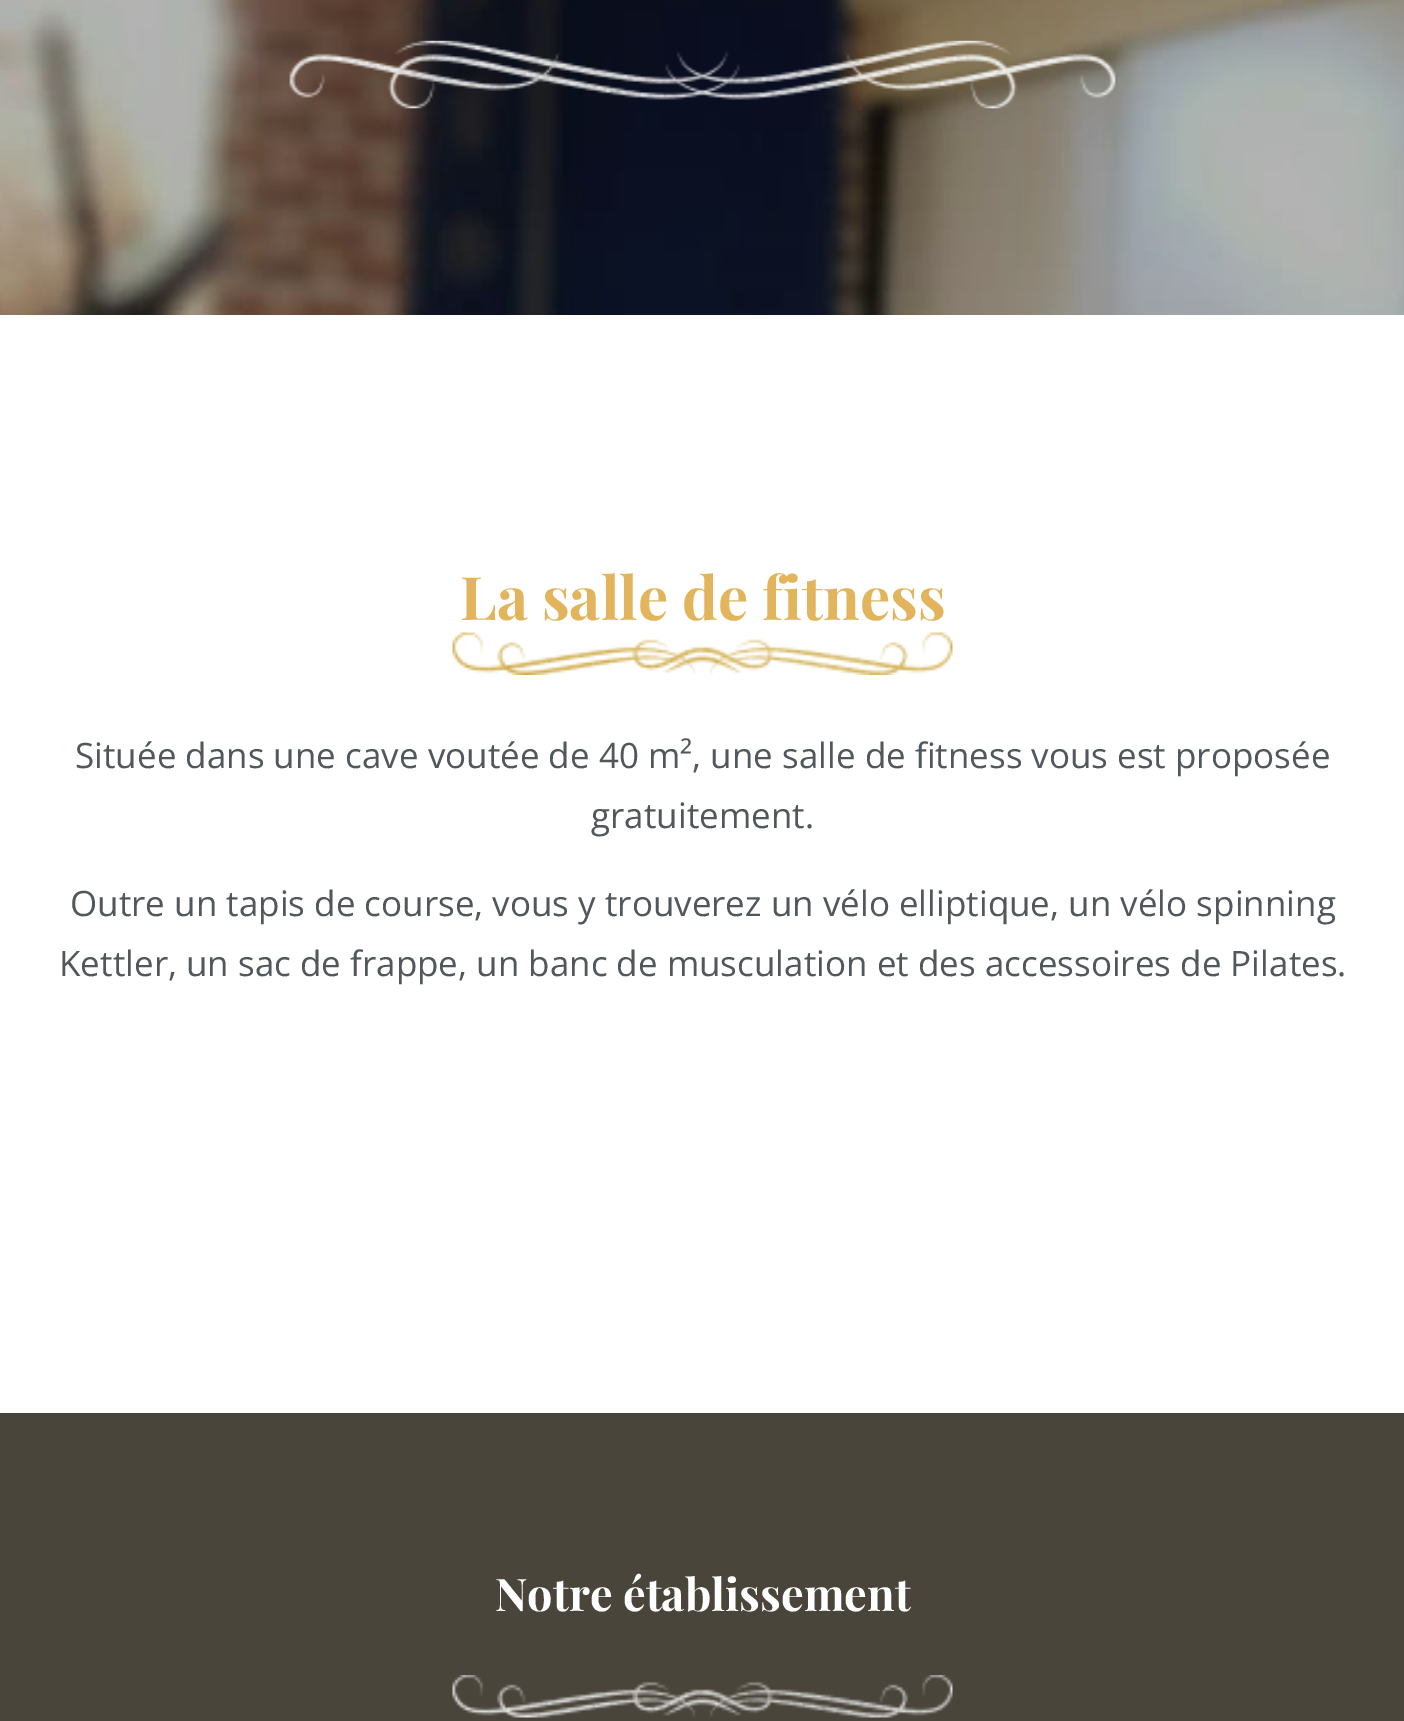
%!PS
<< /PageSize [1404 1721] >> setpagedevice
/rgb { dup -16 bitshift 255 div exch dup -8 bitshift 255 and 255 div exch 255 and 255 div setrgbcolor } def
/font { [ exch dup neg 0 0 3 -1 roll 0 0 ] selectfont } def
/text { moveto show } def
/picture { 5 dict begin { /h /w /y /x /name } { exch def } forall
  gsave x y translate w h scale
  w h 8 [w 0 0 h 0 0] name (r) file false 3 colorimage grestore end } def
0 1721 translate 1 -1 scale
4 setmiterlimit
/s1 { /PlayfairDisplay-Bold 60 font 16#E2B55D rgb } def
/s2 { /OpenSans-Regular 35 font 16#51575B rgb } def
/s3 { /PlayfairDisplay-Bold 45 font 16#FFFFFF rgb } def
16#FFFFFF rgb
0 0 1404 1721 rectfill
(pic1.raw) 0 0 1404 315 picture
(pic2.raw) 289 40 827 69 picture
(pic3.raw) 452 632 501 43 picture
s1
(La salle de fitness) 460 620 text
s2
(Située dans une cave voutée de 40 m², une salle de fitness vous est proposée) 75 768 text
(gratuitement.) 591 828 text
(Outre un tapis de course, vous y trouverez un vélo elliptique, un vélo spinning) 70 916 text
(Kettler, un sac de frappe, un banc de musculation et des accessoires de Pilates.) 59 976 text
16#49453B rgb
0 1413 1404 308 rectfill
(pic4.raw) 452 1675 501 43 picture
s3
(Notre établissement) 495 1611 text
showpage
